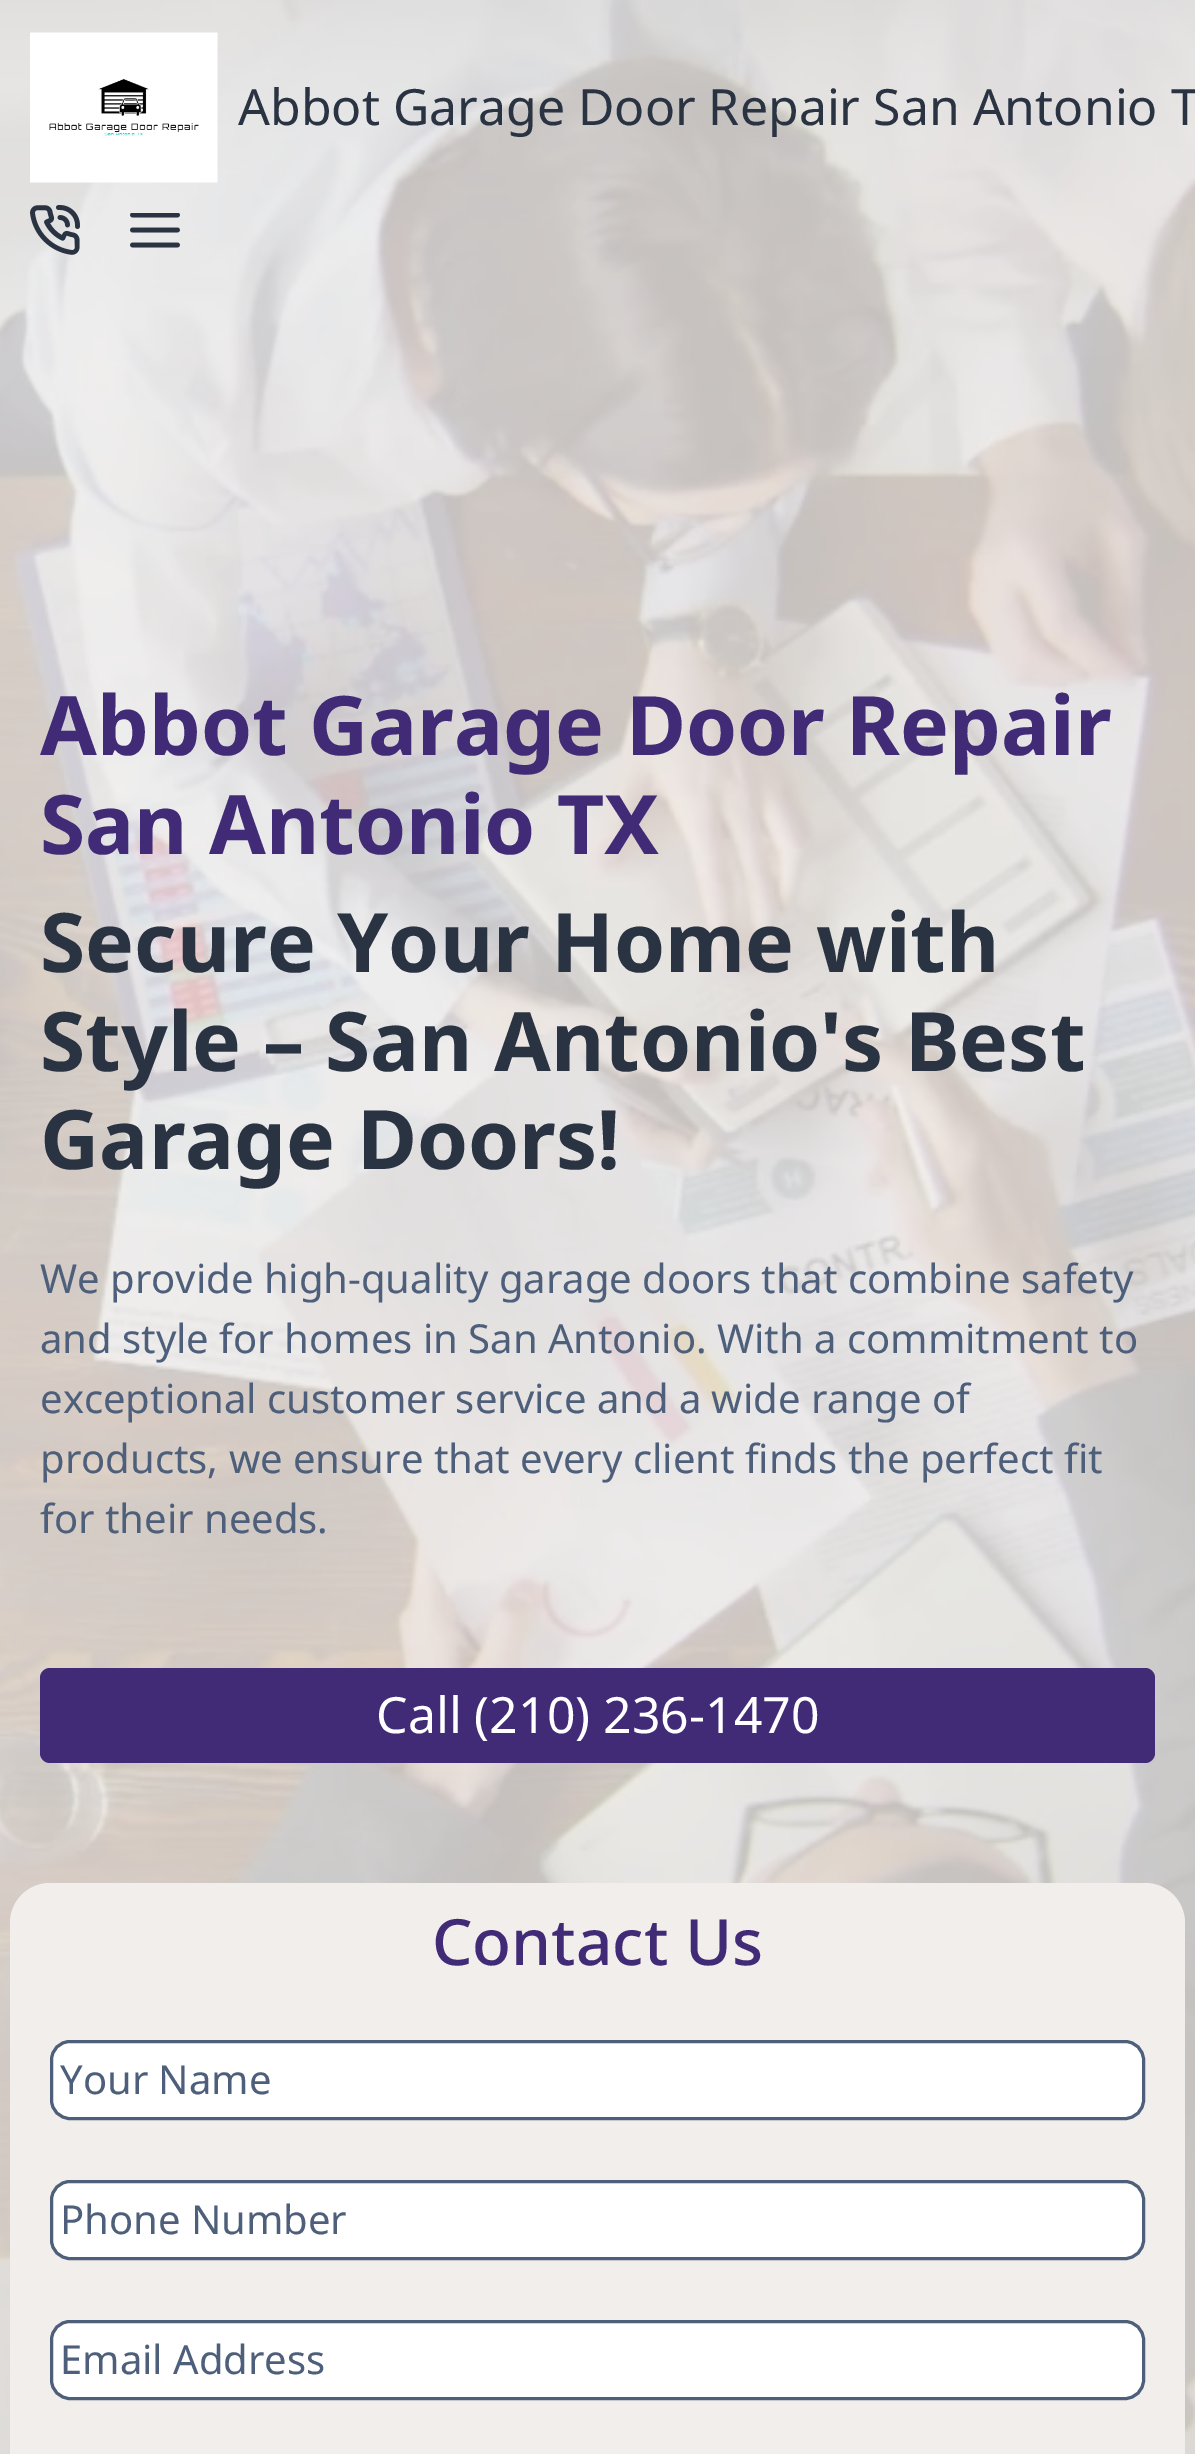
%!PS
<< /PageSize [1195 2454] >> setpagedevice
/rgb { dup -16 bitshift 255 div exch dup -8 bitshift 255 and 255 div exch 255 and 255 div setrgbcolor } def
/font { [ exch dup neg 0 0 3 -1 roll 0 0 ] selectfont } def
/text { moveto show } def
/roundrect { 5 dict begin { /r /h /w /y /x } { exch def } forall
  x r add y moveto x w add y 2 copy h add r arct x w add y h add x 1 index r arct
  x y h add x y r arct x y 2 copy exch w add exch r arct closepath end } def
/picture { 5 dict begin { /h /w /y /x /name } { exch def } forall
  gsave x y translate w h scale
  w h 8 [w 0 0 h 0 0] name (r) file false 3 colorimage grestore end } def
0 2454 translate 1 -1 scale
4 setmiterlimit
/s1 { /NotoSans-Regular 50 font 16#2A3342 rgb } def
/s2 { /NotoSans-Bold 82.1 font 16#412B76 rgb } def
/s3 { /NotoSans-Bold 82.1 font 16#2A3342 rgb } def
/s4 { /NotoSans-Regular 40 font 16#4D5F7A rgb } def
/s5 { /NotoSans-Regular 50 font 16#FFFFFF rgb } def
/s6 { /NotoSans-Medium 63.75 font 16#412B76 rgb } def
16#FFFFFF rgb
0 0 1195 2454 rectfill
(pic1.raw) 0 0 1195 2454 picture
(pic2.raw) 30 32 188 151 picture
s1
(Abbot Garage Door Repair San Antonio T) 238 125 text
(pic3.raw) 30 205 50 50 picture
(pic4.raw) 130 213 50 35 picture
s2
(Abbot Garage Door Repair) 40 755 text
(San Antonio TX) 40 854 text
s3
(Secure Your Home with) 40 972 text
(Style – San Antonio's Best) 40 1071 text
(Garage Doors!) 40 1169 text
s4
(We provide high-quality garage doors that combine safety) 40 1293 text
(and style for homes in San Antonio. With a commitment to) 40 1353 text
(exceptional customer service and a wide range of) 40 1413 text
(products, we ensure that every client finds the perfect fit) 40 1473 text
(for their needs.) 40 1533 text
16#412B76 rgb
40 1668 1115 95 10 roundrect fill
s5
(Call \(210\) 236-1470) 376 1733 text
16#F2EEEB rgb
10 1883 1175 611 40 roundrect fill
s6
(Contact Us) 432 1965 text
16#FFFFFF rgb
51.5 2041.5 1092 77 18.5 roundrect gsave fill grestore
16#4D5F7A rgb
3 setlinewidth
stroke
s4
(Your Name) 60 2094 text
16#FFFFFF rgb
51.5 2181.5 1092 77 18.5 roundrect gsave fill grestore
16#4D5F7A rgb
stroke
(Phone Number) 60 2234 text
16#FFFFFF rgb
51.5 2321.5 1092 77 18.5 roundrect gsave fill grestore
16#4D5F7A rgb
stroke
(Email Address) 60 2374 text
showpage
